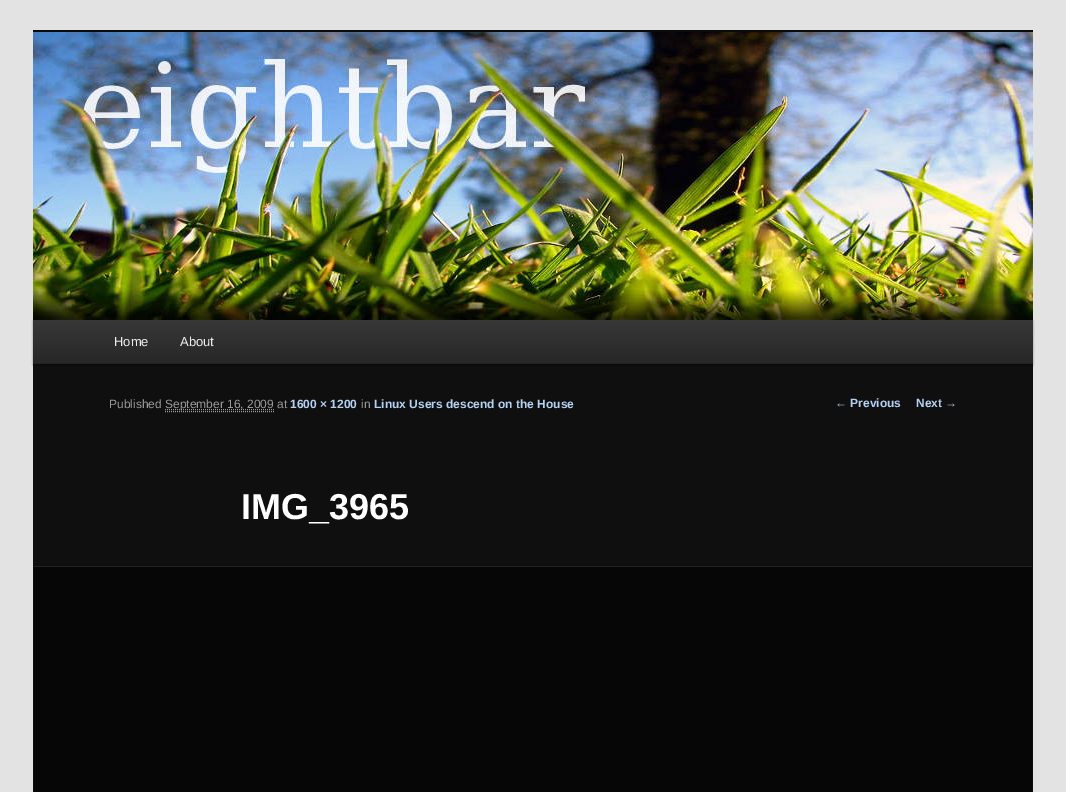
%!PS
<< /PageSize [1066 792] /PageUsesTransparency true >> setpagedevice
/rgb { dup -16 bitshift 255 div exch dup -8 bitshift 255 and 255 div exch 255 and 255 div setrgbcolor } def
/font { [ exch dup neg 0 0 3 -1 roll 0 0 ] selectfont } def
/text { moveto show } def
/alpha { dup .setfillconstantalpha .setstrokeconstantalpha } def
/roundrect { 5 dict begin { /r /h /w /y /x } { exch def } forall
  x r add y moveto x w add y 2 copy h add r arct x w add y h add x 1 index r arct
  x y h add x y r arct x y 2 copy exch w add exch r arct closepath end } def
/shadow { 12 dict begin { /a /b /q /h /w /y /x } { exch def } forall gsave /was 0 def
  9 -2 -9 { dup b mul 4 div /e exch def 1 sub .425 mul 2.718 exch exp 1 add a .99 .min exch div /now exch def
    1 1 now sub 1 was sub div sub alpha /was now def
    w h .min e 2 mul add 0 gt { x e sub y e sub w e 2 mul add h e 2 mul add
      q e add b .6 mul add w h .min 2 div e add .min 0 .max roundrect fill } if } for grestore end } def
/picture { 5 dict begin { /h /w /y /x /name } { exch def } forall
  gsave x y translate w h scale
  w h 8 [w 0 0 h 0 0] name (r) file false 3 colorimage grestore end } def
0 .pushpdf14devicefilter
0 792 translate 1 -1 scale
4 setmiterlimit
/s1 { /LiberationSans-Regular 13 font 16#EEEEEE rgb } def
/s2 { /LiberationSans-Regular 12 font 16#999999 rgb } def
/s3 { /LiberationSans-Bold 12 font 16#B4D1F3 rgb } def
/s4 { /LiberationSans-Bold 36 font 16#FFFFFF rgb } def
16#E3E3E3 rgb
0 0 1066 792 rectfill
16#0F0F0F rgb
33 364 1000 428 rectfill
16#0A0A0A rgb
33 30 1000 2 rectfill
16#000000 rgb
33 321 1000 44 0 1 0.4 shadow
(pic1.raw) 33 32 1000 288 picture
gsave 33 320 moveto 1033 320 lineto 1033 363 lineto 33 363 lineto closepath clip newpath
<< /ShadingType 2 /ColorSpace /DeviceRGB /Coords [533 320 533 363] /Extend [true true] /Function << /FunctionType 2 /Domain [0 1] /C0 [0.22 0.22 0.22] /C1 [0.153 0.153 0.153] /N 1 >> >> shfill grestore
16#222222 rgb
33 363 1000 1 rectfill
s1
(Home) 114 346 text
(About) 180 346 text
s2
(Published) 109 408 text
[1 1] 0 setdash
165 409.5 moveto 274 409.5 lineto stroke
(September 16, 2009 at) 165 408 text
165 411.5 moveto 274 411.5 lineto stroke
s3
(1600 × 1200) 290 408 text
s2
(in) 361 408 text
s3
(Linux Users descend on the House) 374 408 text
s4
(IMG_3965) 241 519 text
16#060606 rgb
34 567 998 225 rectfill
16#222222 rgb
34 566 998 1 rectfill
s3
(← Previous) 835 407 text
(Next →) 916 407 text
.poppdf14devicefilter showpage
